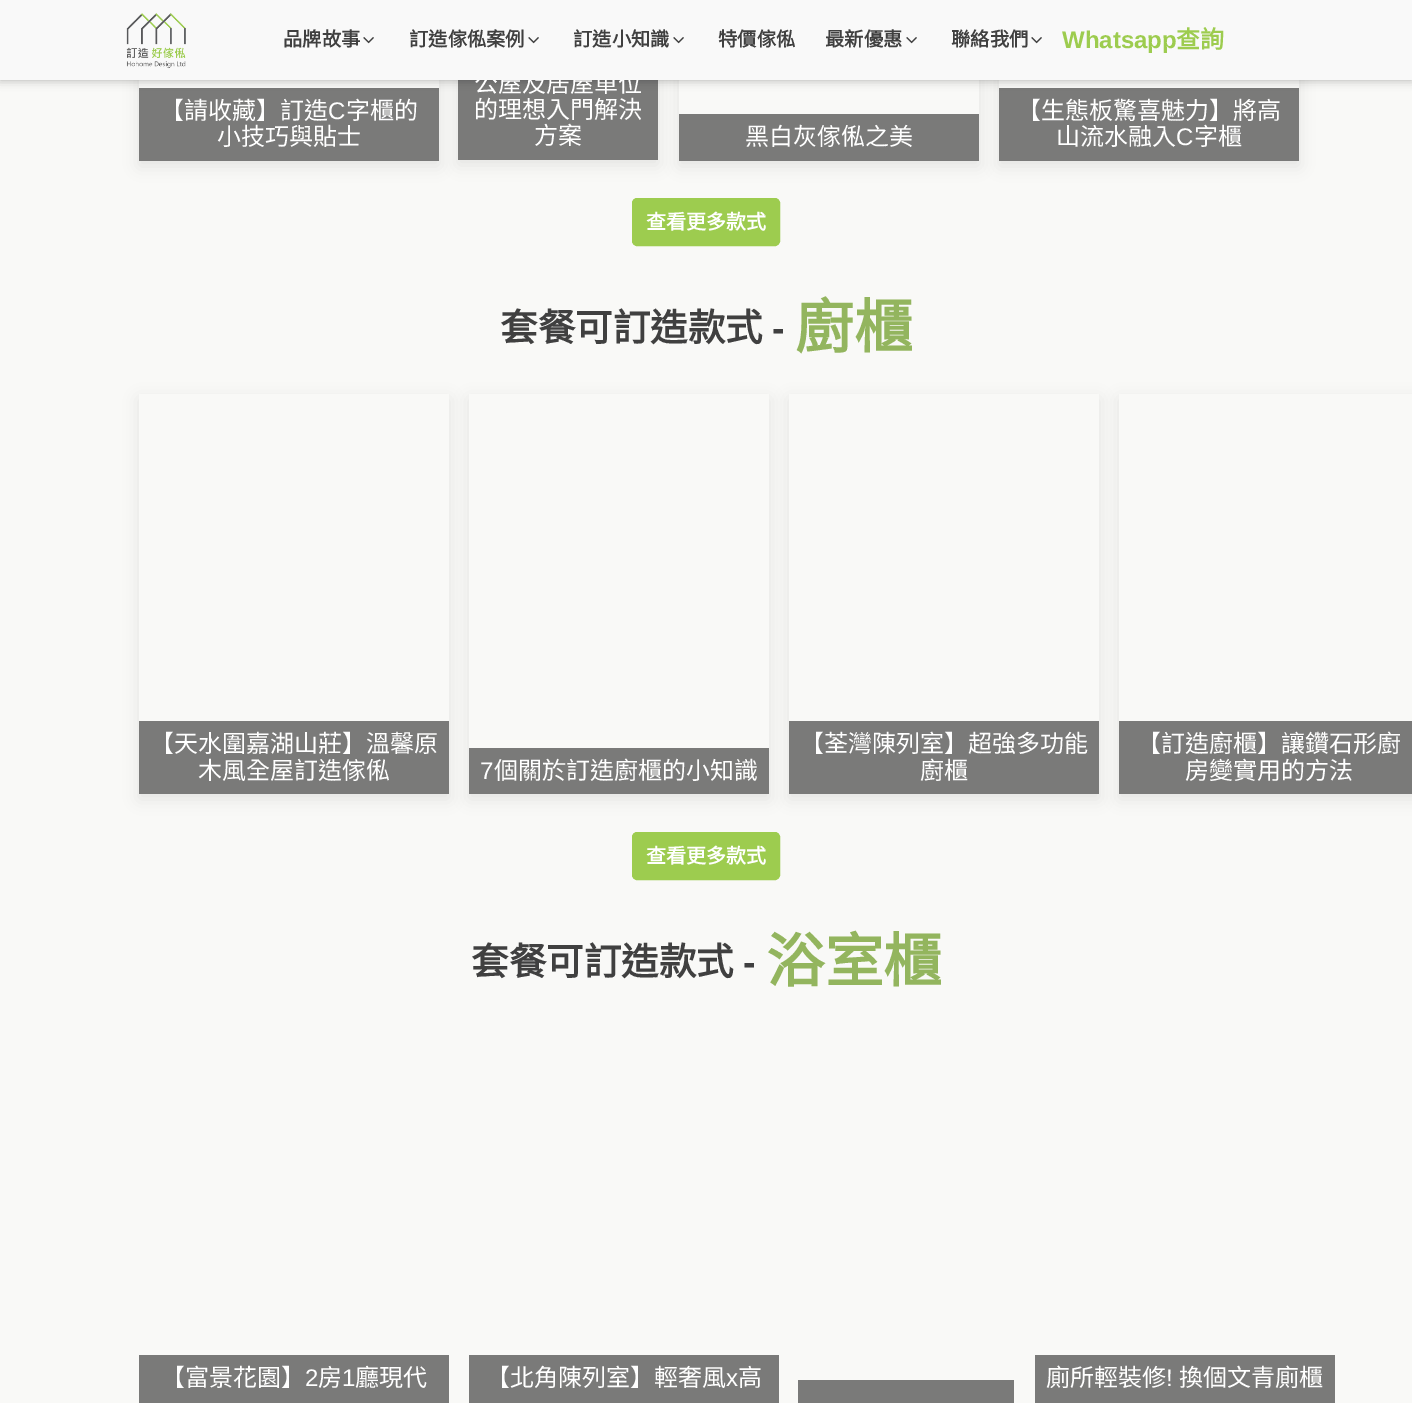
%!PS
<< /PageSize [1412 1403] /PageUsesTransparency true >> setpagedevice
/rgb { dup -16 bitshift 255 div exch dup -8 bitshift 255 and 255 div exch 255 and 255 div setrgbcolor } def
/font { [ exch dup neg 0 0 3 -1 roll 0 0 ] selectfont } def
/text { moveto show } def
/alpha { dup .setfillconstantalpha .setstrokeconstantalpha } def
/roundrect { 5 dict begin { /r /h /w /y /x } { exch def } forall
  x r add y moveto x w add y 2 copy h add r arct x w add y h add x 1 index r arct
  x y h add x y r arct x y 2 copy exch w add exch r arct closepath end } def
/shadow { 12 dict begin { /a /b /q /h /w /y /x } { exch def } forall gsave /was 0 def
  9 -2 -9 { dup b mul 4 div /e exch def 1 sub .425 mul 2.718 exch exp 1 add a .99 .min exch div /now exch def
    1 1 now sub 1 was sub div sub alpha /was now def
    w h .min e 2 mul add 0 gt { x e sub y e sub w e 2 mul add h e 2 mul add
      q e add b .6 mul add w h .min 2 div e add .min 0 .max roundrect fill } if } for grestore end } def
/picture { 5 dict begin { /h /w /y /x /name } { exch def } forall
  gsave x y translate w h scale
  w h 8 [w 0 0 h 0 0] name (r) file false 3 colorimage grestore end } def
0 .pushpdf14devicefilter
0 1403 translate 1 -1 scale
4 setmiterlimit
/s1 { /NotoSansCJKHK-Regular 24 font 16#FFFFFF rgb } def
/s2 { /NotoSansCJKHK-Bold 19.25 font 16#404040 rgb } def
/s3 { /LiberationSans-Bold 24 font 16#9DCC4F rgb } def
/s4 { /NotoSansCJKHK-Bold 24 font 16#9DCC4F rgb } def
/s5 { /LiberationSans-Regular 24 font 16#FFFFFF rgb } def
/s6 { /NotoSansCJKHK-Bold 20 font 16#FFFFFF rgb } def
/s7 { /NotoSansCJKHK-Bold 37.5 font 16#404040 rgb } def
/s8 { /LiberationSans-Bold 37.5 font 16#404040 rgb } def
/s9 { /NotoSansCJKHK-Bold 58.5 font 16#93B55E rgb } def
16#F9F9F7 rgb
0 0 1412 1403 rectfill
gsave
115 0 moveto 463 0 lineto 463 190 lineto 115 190 lineto closepath 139 -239 moveto 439 -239 lineto 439 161 lineto 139 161 lineto closepath eoclip newpath
16#000000 rgb
139 -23 300 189 0 7.5 0.08 shadow
grestore
16#000000 rgb
458 -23 200 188 0 7.5 0.08 shadow
16#7A7A79 rgb
139 88 300 73 rectfill
gsave
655 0 moveto 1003 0 lineto 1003 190 lineto 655 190 lineto closepath 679 -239 moveto 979 -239 lineto 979 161 lineto 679 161 lineto closepath eoclip newpath
16#000000 rgb
679 -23 300 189 0 7.5 0.08 shadow
grestore
458 80 200 80 rectfill
gsave
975 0 moveto 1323 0 lineto 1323 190 lineto 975 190 lineto closepath 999 -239 moveto 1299 -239 lineto 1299 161 lineto 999 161 lineto closepath eoclip newpath
16#000000 rgb
999 -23 300 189 0 7.5 0.08 shadow
grestore
999 88 300 73 rectfill
16#000000 rgb
0 0 1412 80 0 5 0.3 shadow
s1
(公屋及居屋單位) 474 92 text
16#F9F9F9 rgb
0 0 1412 80 rectfill
(pic1.raw) 126 13 60 56 picture
s2
(品牌故事) 283 46 text
(pic2.raw) 363 37 11 7 picture
(訂造傢俬案例) 409 46 text
(pic2.raw) 528 37 11 7 picture
(訂造小知識) 573 46 text
(pic2.raw) 673 37 11 7 picture
(特價傢俬) 718 46 text
(最新優惠) 825 46 text
(pic2.raw) 906 37 11 7 picture
(聯絡我們) 951 46 text
(pic2.raw) 1031 37 11 7 picture
s3
(Whatsapp) 1062 48 text
s4
(查詢) 1176 48 text
s1
(【請收藏】訂造) 160 119 text
s5
(C) 328 119 text
s1
(字櫃的) 346 119 text
(小技巧與貼士) 217 145 text
(的理想入門解決) 474 118 text
(方案) 534 144 text
16#7A7A79 rgb
679 114 300 47 rectfill
s1
(黑白灰傢俬之美) 745 145 text
(【生態板驚喜魅力】將高) 1017 119 text
(山流水融入) 1056 145 text
s5
(C) 1176 145 text
s1
(字櫃) 1194 145 text
16#9DCC4F rgb
632.5 198.5 147 47 4.5 roundrect gsave fill grestore
stroke
s6
(查看更多款式) 646 229 text
s7
(套餐可訂造款式) 500 341 text
s8
(-) 772 341 text
s9
(廚櫃) 795 348 text
gsave
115 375 moveto 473 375 lineto 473 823 lineto 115 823 lineto closepath 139 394 moveto 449 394 lineto 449 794 lineto 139 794 lineto closepath eoclip newpath
16#000000 rgb
139 399 310 400 0 7.5 0.08 shadow
grestore
gsave
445 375 moveto 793 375 lineto 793 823 lineto 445 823 lineto closepath 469 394 moveto 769 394 lineto 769 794 lineto 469 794 lineto closepath eoclip newpath
16#000000 rgb
469 399 300 400 0 7.5 0.08 shadow
grestore
16#7A7A79 rgb
139 721 310 73 rectfill
s1
(【天水圍嘉湖山莊】溫馨原) 150 752 text
(木風全屋訂造傢俬) 198 779 text
gsave
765 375 moveto 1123 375 lineto 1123 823 lineto 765 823 lineto closepath 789 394 moveto 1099 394 lineto 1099 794 lineto 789 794 lineto closepath eoclip newpath
16#000000 rgb
789 399 310 400 0 7.5 0.08 shadow
grestore
16#7A7A79 rgb
469 748 300 46 rectfill
s5
(7) 480 779 text
s1
(個關於訂造廚櫃的小知識) 494 779 text
gsave
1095 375 moveto 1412 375 lineto 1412 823 lineto 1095 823 lineto closepath 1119 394 moveto 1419 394 lineto 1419 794 lineto 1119 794 lineto closepath eoclip newpath
16#000000 rgb
1119 399 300 400 0 7.5 0.08 shadow
grestore
16#7A7A79 rgb
789 721 310 73 rectfill
s1
(【荃灣陳列室】超強多功能) 800 752 text
(廚櫃) 920 779 text
16#7A7A79 rgb
1119 721 293 73 rectfill
s1
(【訂造廚櫃】讓鑽石形廚) 1137 752 text
(房變實用的方法) 1185 779 text
16#9DCC4F rgb
632.5 832.5 147 47 4.5 roundrect gsave fill grestore
stroke
s6
(查看更多款式) 646 863 text
s7
(套餐可訂造款式) 471 975 text
s8
(-) 743 975 text
s9
(浴室櫃) 766 982 text
16#7A7A79 rgb
139 1355 310 48 rectfill
s1
(【富景花園】) 161 1386 text
s5
(2) 305 1386 text
s1
(房) 318 1386 text
s5
(1) 342 1386 text
s1
(廳現代) 355 1386 text
16#7A7A79 rgb
469 1355 310 48 rectfill
s1
(【北角陳列室】輕奢風) 486 1386 text
s5
(x) 726 1386 text
s1
(高) 738 1386 text
16#7A7A79 rgb
1035 1355 300 48 rectfill
s1
(廁所輕裝修) 1046 1386 text
s5
(!) 1166 1386 text
s1
(換個文青廁櫃) 1179 1386 text
16#7A7A79 rgb
798 1380 216 23 rectfill
.poppdf14devicefilter showpage
